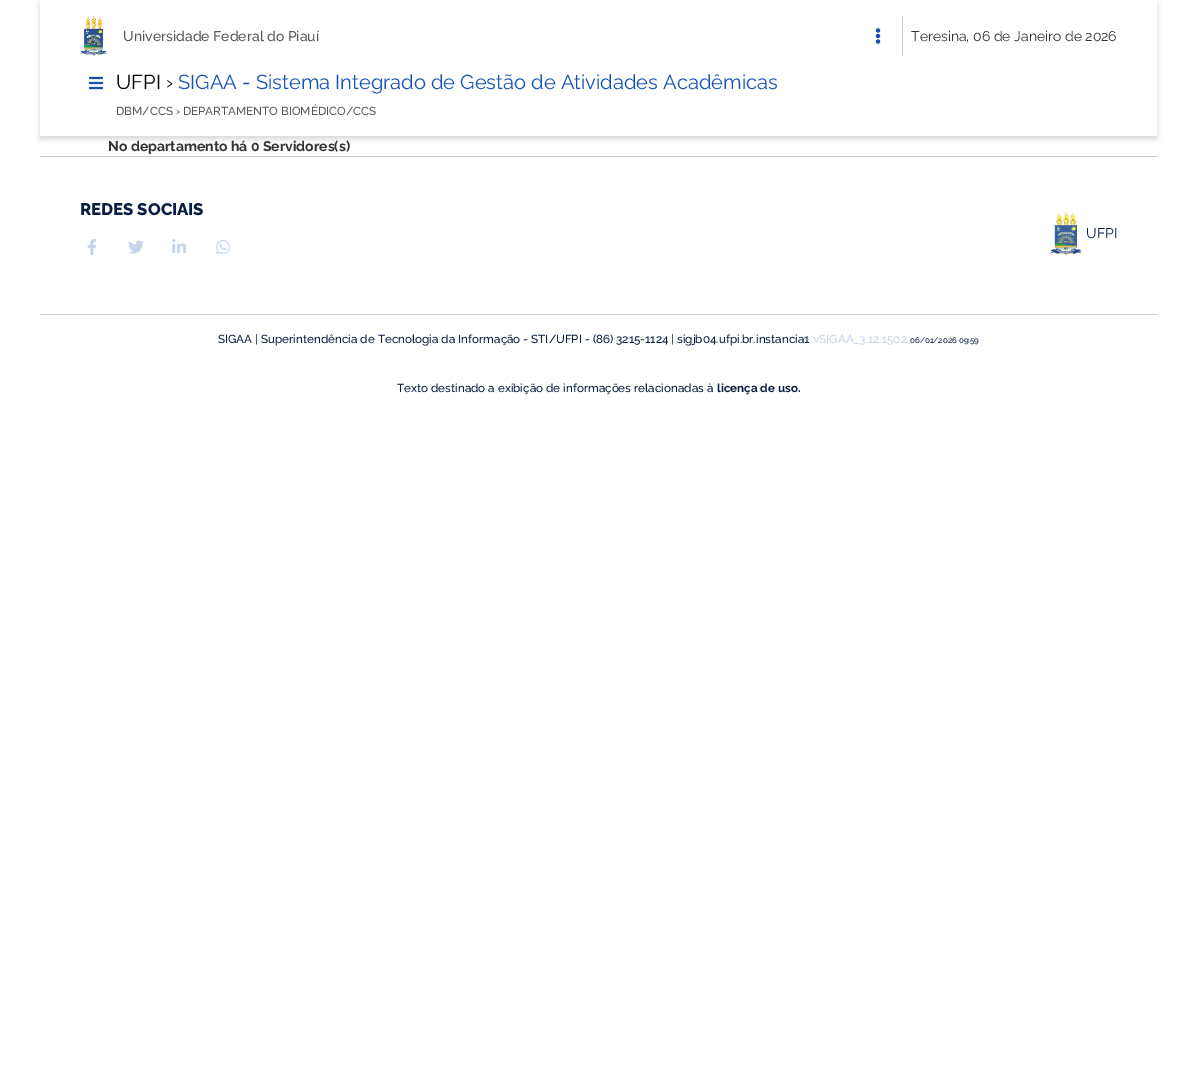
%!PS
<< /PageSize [1197 1089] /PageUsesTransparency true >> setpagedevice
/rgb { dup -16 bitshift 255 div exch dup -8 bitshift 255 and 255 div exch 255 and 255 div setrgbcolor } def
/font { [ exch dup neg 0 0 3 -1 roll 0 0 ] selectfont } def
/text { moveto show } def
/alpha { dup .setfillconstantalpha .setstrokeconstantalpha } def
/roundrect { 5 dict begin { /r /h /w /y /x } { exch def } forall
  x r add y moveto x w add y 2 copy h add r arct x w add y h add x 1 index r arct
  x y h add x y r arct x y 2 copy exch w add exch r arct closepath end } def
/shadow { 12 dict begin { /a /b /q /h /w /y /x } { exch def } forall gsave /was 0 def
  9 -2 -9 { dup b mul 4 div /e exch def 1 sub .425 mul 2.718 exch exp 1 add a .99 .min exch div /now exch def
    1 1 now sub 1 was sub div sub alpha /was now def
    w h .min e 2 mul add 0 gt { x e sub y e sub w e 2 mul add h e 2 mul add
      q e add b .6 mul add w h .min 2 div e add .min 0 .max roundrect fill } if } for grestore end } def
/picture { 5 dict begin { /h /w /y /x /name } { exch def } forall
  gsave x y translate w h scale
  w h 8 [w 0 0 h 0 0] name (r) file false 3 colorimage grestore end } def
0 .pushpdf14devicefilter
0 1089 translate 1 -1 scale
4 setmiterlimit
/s1 { /Raleway-Medium 14 font 16#555555 rgb } def
/s2 { /Raleway-Regular 14 font 16#333333 rgb } def
/s3 { /Raleway-Regular 20.15 font 16#000000 rgb } def
/s4 { /Raleway-Regular 20.15 font 16#1351B4 rgb } def
/s5 { /Raleway-Medium 11.65 font 16#555555 rgb } def
/s6 { /Raleway-Bold 14 font 16#333333 rgb } def
/s7 { /Raleway-ExtraBold 16.75 font 16#071D41 rgb } def
/s8 { /Raleway-Regular 14 font 16#071D41 rgb } def
/s9 { /Raleway-Medium 11.65 font 16#071D41 rgb } def
/s10 { /Raleway-Medium 11.65 font 16#C5D4EB rgb } def
/s11 { /Raleway-Medium 8 font 16#071D41 rgb } def
/s12 { /Raleway-Bold 11.65 font 16#071D41 rgb } def
16#FFFFFF rgb
0 0 1197 1089 rectfill
gsave
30 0 moveto 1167 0 lineto 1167 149 lineto 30 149 lineto closepath 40 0 moveto 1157 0 lineto 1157 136 lineto 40 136 lineto closepath eoclip newpath
16#000000 rgb
40 3 1117 136 0 3 0.16 shadow
grestore
(pic1.raw) 80 16 27 40 picture
s1
(Universidade Federal do Piauí) 123 41 text
(pic2.raw) 875 28 6 16 picture
16#CCCCCC rgb
902 16 1 40 rectfill
s2
(Teresina, 06 de Janeiro de 2026) 911 41 text
(pic3.raw) 89 76 14 14 picture
s3
(UFPI ›) 116 89 text
s4
(SIGAA - Sistema Integrado de Gestão de Atividades Acadêmicas) 178 89 text
s5
(DBM/CCS › DEPARTAMENTO BIOMÉDICO/CCS) 116 115 text
s6
(No departamento há 0 Servidores\(s\)) 108 151 text
16#CCCCCC rgb
40 156 1117 1 rectfill
s7
(REDES SOCIAIS) 80 215 text
(pic4.raw) 87 239 10 16 picture
(pic5.raw) 128 240 16 14 picture
(pic6.raw) 172 239 14 14 picture
(pic7.raw) 216 240 14 14 picture
(pic8.raw) 1050 212 32 44 picture
s8
(UFPI) 1086 238 text
16#CCCCCC rgb
40 314 1117 1 rectfill
s9
(SIGAA | Superintendência de Tecnologia da Informação - STI/UFPI - \(86\) 3215-1124 | sigjb04.ufpi.br.instancia1) 218 343 text
s10
(vSIGAA_3.12.1502) 813 343 text
s11
(06/01/2026 09:59) 910 343 text
s9
(Texto destinado a exibição de informações relacionadas à) 397 392 text
s12
(licença de uso.) 717 392 text
.poppdf14devicefilter showpage
